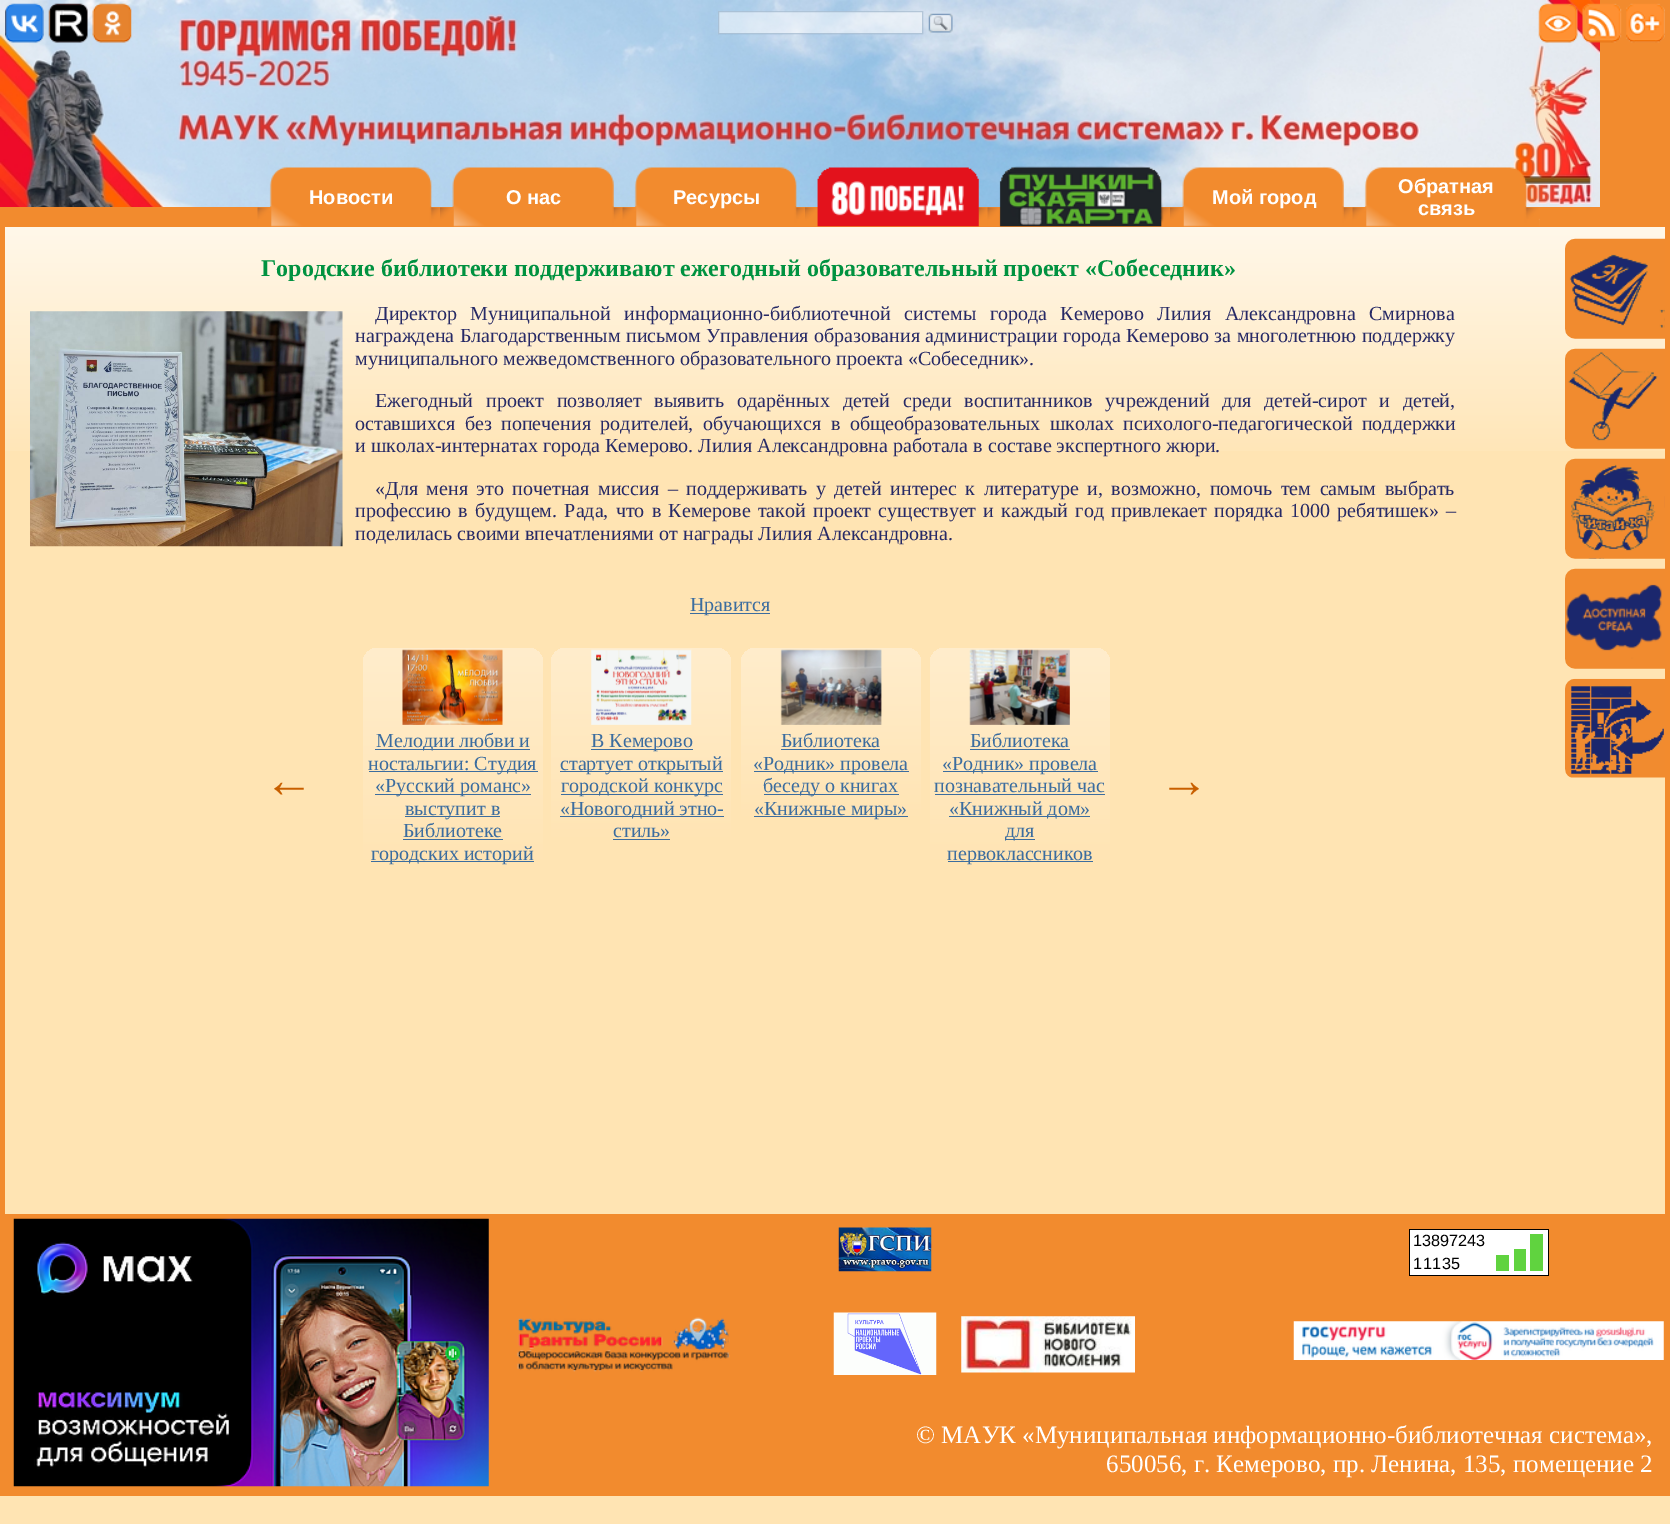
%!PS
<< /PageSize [1670 1524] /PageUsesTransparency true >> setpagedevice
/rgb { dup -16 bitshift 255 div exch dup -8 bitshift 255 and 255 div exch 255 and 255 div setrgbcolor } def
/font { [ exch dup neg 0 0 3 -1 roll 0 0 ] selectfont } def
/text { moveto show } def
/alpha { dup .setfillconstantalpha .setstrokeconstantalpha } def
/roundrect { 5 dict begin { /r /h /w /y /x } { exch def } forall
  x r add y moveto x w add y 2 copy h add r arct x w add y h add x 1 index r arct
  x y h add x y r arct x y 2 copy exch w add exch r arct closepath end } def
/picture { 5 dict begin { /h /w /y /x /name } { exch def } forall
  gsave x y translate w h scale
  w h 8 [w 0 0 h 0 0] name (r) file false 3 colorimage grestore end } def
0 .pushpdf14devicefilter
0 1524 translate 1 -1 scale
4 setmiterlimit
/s1 { /LiberationSans-Bold 20 font 16#FFFFFF rgb } def
/s2 { /LiberationSerif-Bold 24 font 16#009240 rgb } def
/s3 { /LiberationSerif-Regular 20 font 16#272A66 rgb } def
/s4 { /LiberationSerif-Regular 20 font 16#3C6D9F rgb } def
/s5 { /LiberationSerif-Bold 50 font 16#C85F00 rgb } def
/s6 { /LiberationSans-Regular 16.25 font 16#000000 rgb } def
/s7 { /LiberationSerif-Regular 25 font 16#FFFFFF rgb } def
16#FFE4B3 rgb
0 0 1670 1524 rectfill
16#F28B2E rgb
1600 0 70 226 rectfill
(pic1.raw) 0 0 1600 207 picture
(pic2.raw) 5 3 39 40 picture
(pic3.raw) 48 3 40 40 picture
(pic4.raw) 92 3 40 40 picture
0.5 alpha
16#FFFFFF rgb
718 11 205 23 rectfill
16#7F9DB9 rgb
718.5 11.5 204 22 rectstroke
1 alpha
(pic5.raw) 928 13 25 20 picture
(pic6.raw) 1538 3 40 40 picture
(pic7.raw) 1582 3 40 40 picture
(pic8.raw) 1626 3 39 40 picture
16#F28B2E rgb
0 226 5 988 rectfill
0 207 1665 20 rectfill
(pic9.raw) 257 167 188 60 picture
s1
(Новости) 309 204 text
(pic10.raw) 440 167 188 60 picture
(О нас) 506 204 text
(pic11.raw) 622 167 188 60 picture
(Ресурсы) 673 204 text
(pic12.raw) 805 167 188 60 picture
(pic13.raw) 987 166 188 61 picture
(pic14.raw) 1170 167 188 60 picture
(Мой город) 1212 204 text
(pic15.raw) 1352 167 188 60 picture
(Обратная) 1398 193 text
(связь) 1418 215 text
(pic16.raw) 5 227 1660 224 picture
16#F28B2E rgb
1665 226 5 988 rectfill
s2
(Городские библиотеки поддерживают ежегодный образовательный проект «Собеседник») 261 276 text
(pic17.raw) 30 311 313 236 picture
/LiberationSerif-Regular 20 font
16#272A66 rgb
375 320 moveto 8.5 0 32 (Директор Муниципальной информационно-библиотечной системы города Кемерово Лилия Александровна Смирнова) widthshow
355 342 moveto 0.4 0 32 (награждена Благодарственным письмом Управления образования администрации города Кемерово за многолетнюю поддержку) widthshow
(муниципального межведомственного образовательного проекта «Собеседник».) 355 365 text
375 407 moveto 7.75 0 32 (Ежегодный проект позволяет выявить одарённых детей среди воспитанников учреждений для детей-сирот и детей,) widthshow
355 430 moveto 4.5 0 32 (оставшихся без попечения родителей, обучающихся в общеобразовательных школах психолого-педагогической поддержки) widthshow
(и школах-интернатах города Кемерово. Лилия Александровна работала в составе экспертного жюри.) 355 452 text
375 495 moveto 3.6 0 32 («Для меня это почетная миссия – поддерживать у детей интерес к литературе и, возможно, помочь тем самым выбрать) widthshow
355 517 moveto 2.25 0 32 (профессию в будущем. Рада, что в Кемерове такой проект существует и каждый год привлекает порядка 1000 ребятишек» –) widthshow
(поделилась своими впечатлениями от награды Лилия Александровна.) 355 540 text
16#3C6D9F rgb
690 613 80 1 rectfill
(Нравится) 690 611 text
s5
(←) 264 797 text
gsave 363 648 180 220 15 roundrect clip newpath
<< /ShadingType 2 /ColorSpace /DeviceRGB /Coords [453 648 453 868] /Extend [true true] /Function << /FunctionType 2 /Domain [0 1] /C0 [1 0.929 0.8] /C1 [1 0.894 0.702] /N 1 >> >> shfill grestore
(pic18.raw) 402 649 101 76 picture
16#3C6D9F rgb
375 749 155 1 rectfill
s4
(Мелодии любви и) 376 747 text
369 771 169 1 rectfill
(ностальгии: Студия) 368 770 text
375 794 156 1 rectfill
(«Русский романс») 375 792 text
405 816 95 1 rectfill
(выступит в) 405 815 text
(Библиотеке) 403 837 text
403 839 100 1 rectfill
371 861 163 1 rectfill
(городских историй) 371 860 text
gsave 551 648 180 197 15 roundrect clip newpath
<< /ShadingType 2 /ColorSpace /DeviceRGB /Coords [641 648 641 845] /Extend [true true] /Function << /FunctionType 2 /Domain [0 1] /C0 [1 0.929 0.8] /C1 [1 0.894 0.702] /N 1 >> >> shfill grestore
(pic19.raw) 591 649 101 76 picture
591 749 102 1 rectfill
(В Кемерово) 591 747 text
560 771 163 1 rectfill
(стартует открытый) 560 770 text
561 794 162 1 rectfill
(городской конкурс) 561 792 text
560 816 164 1 rectfill
(«Новогодний этно-) 560 815 text
(стиль») 613 837 text
613 839 57 1 rectfill
gsave 741 648 180 175 15 roundrect clip newpath
<< /ShadingType 2 /ColorSpace /DeviceRGB /Coords [831 648 831 823] /Extend [true true] /Function << /FunctionType 2 /Domain [0 1] /C0 [1 0.929 0.8] /C1 [1 0.894 0.702] /N 1 >> >> shfill grestore
(pic20.raw) 780 649 102 76 picture
(Библиотека) 781 747 text
781 749 99 1 rectfill
754 771 155 1 rectfill
(«Родник» провела) 753 770 text
764 794 135 1 rectfill
(беседу о книгах) 763 792 text
754 816 154 1 rectfill
(«Книжные миры») 754 815 text
gsave 930 648 180 220 15 roundrect clip newpath
<< /ShadingType 2 /ColorSpace /DeviceRGB /Coords [1020 648 1020 868] /Extend [true true] /Function << /FunctionType 2 /Domain [0 1] /C0 [1 0.929 0.8] /C1 [1 0.894 0.702] /N 1 >> >> shfill grestore
(pic21.raw) 969 649 101 76 picture
(Библиотека) 970 747 text
970 749 100 1 rectfill
943 771 155 1 rectfill
(«Родник» провела) 942 770 text
(познавательный час) 934 792 text
935 794 170 1 rectfill
949 816 141 1 rectfill
(«Книжный дом») 949 815 text
1005 839 30 1 rectfill
(для) 1005 837 text
948 861 145 1 rectfill
(первоклассников) 947 860 text
s5
(→) 1159 797 text
(pic22.raw) 1565 238 100 101 picture
(pic23.raw) 1565 348 100 101 picture
(pic24.raw) 1565 458 100 101 picture
(pic25.raw) 1565 568 100 101 picture
(pic26.raw) 1565 678 100 100 picture
16#F28B2E rgb
0 1214 1670 282 rectfill
(pic27.raw) 13 1218 476 269 picture
(pic28.raw) 838 1227 94 45 picture
16#000000 rgb
1409 1229 140 47 rectfill
16#FFFFFF rgb
1410 1230 138 45 rectfill
16#60D33F rgb
1496 1255 13 16 rectfill
1514 1249 12 22 rectfill
1530 1234 13 37 rectfill
s6
(13897243) 1413 1246 text
1413 1269 moveto 0.5 0 (11135) ashow
(pic29.raw) 517 1317 213 55 picture
(pic30.raw) 833 1312 104 63 picture
(pic31.raw) 961 1316 174 57 picture
(pic32.raw) 1293 1321 371 39 picture
s7
(© МАУК «Муниципальная информационно-библиотечная система»,) 916 1443 text
(650056, г. Кемерово, пр. Ленина, 135, помещение 2) 1106 1472 text
.poppdf14devicefilter showpage
